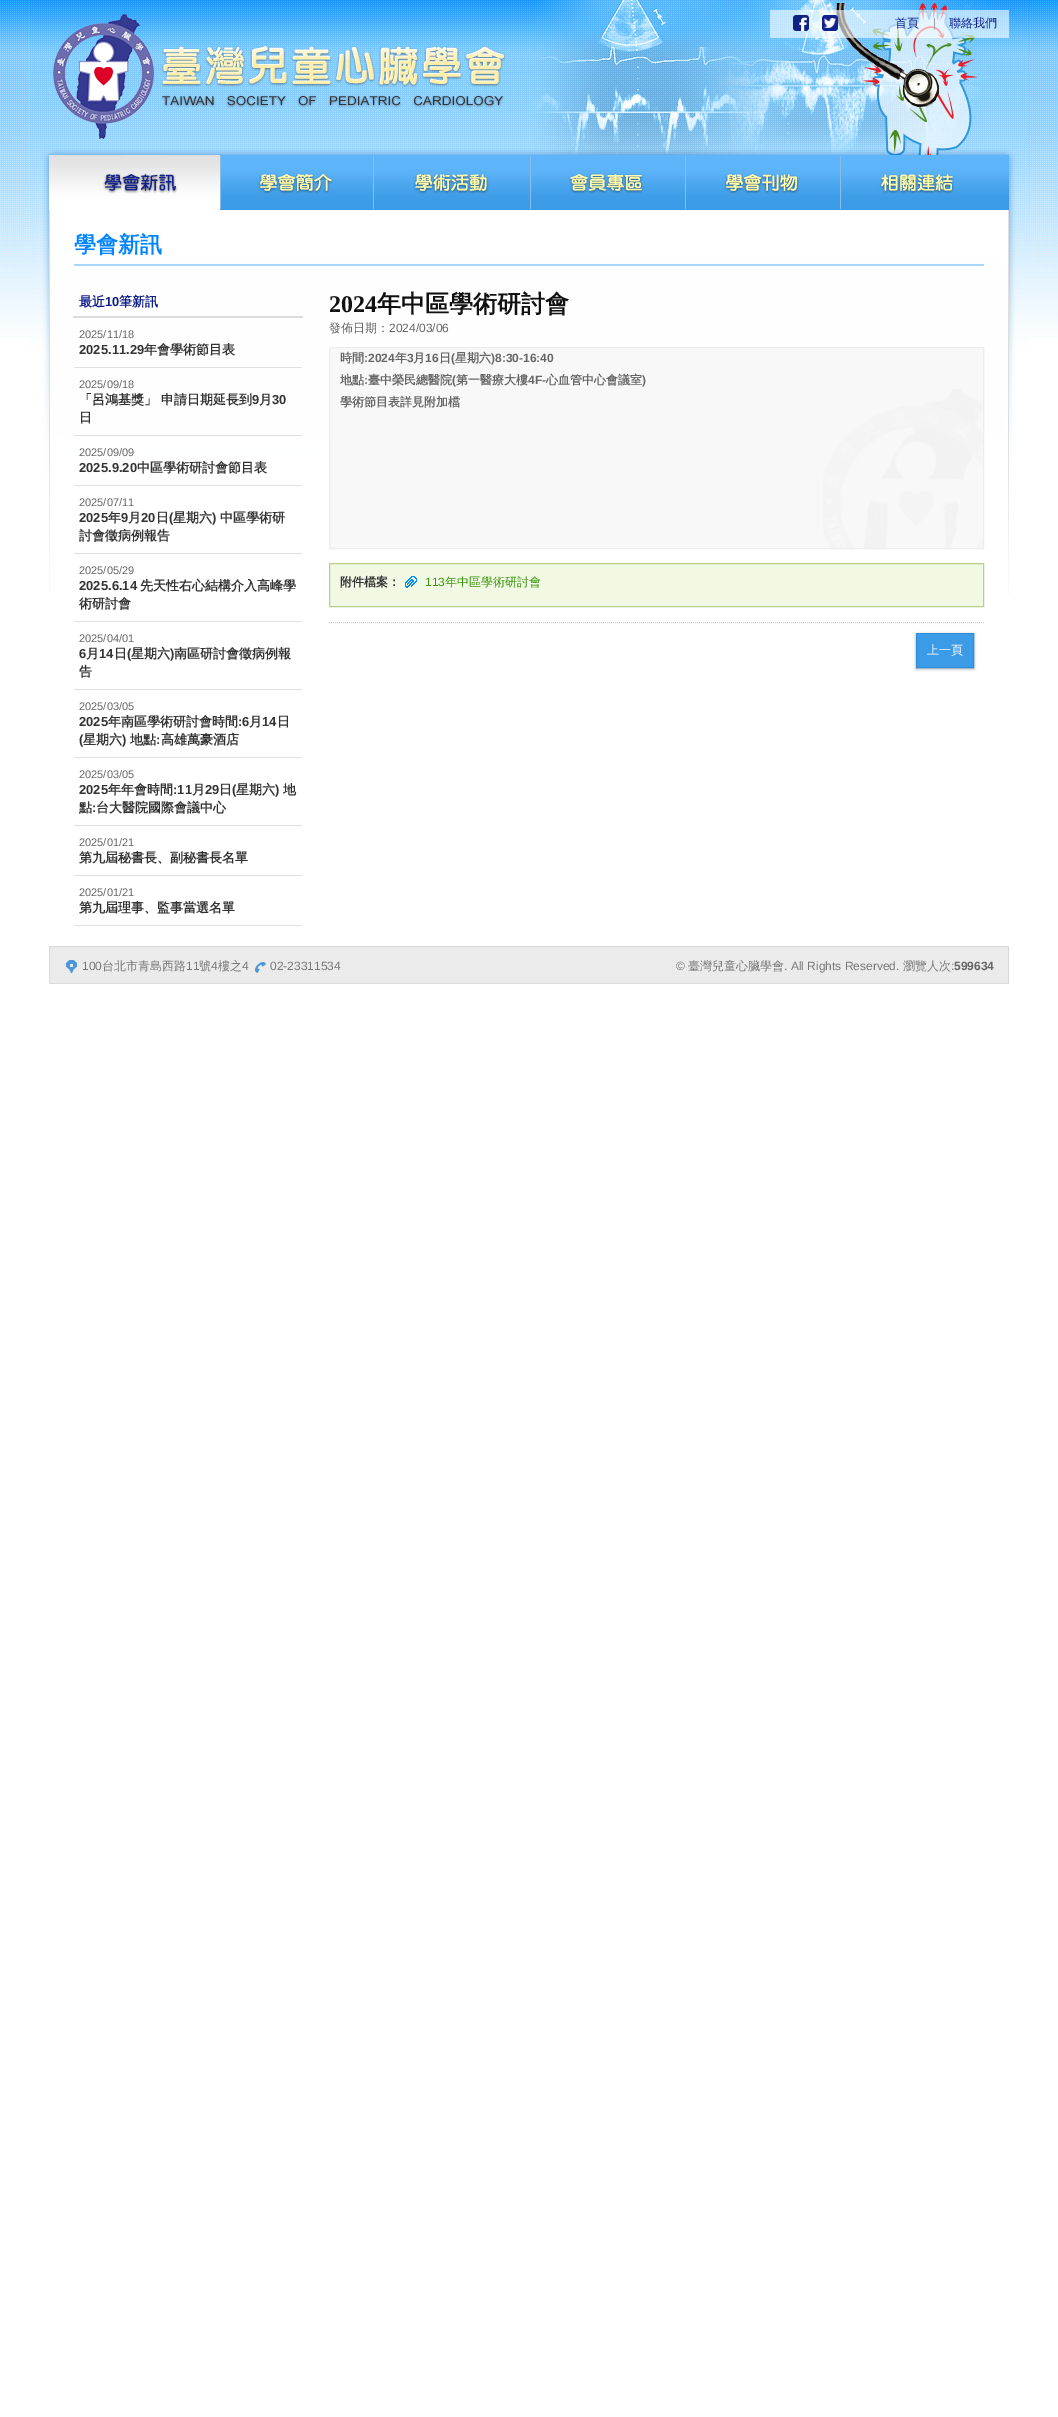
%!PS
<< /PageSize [1058 2417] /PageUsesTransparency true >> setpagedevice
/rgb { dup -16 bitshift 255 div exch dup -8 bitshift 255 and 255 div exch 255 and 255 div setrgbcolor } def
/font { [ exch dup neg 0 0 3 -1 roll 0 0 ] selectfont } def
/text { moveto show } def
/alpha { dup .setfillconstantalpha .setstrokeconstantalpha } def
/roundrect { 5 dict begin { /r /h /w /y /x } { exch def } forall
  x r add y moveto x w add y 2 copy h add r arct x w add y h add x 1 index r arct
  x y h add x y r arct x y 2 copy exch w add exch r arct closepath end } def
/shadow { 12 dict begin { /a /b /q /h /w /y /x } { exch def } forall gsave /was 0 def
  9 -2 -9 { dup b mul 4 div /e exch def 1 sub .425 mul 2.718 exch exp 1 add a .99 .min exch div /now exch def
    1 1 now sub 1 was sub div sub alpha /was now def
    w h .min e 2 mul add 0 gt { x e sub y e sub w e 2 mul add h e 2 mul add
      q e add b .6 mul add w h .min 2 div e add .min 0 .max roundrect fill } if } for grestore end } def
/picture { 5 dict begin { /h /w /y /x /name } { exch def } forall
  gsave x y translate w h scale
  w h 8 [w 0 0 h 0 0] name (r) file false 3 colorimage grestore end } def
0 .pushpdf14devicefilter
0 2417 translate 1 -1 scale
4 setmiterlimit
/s1 { /WenQuanYiZenHei-Medium 12 font 16#0E1F89 rgb } def
/s2 { /LiberationSans-Regular 12 font 16#9F9F9F rgb } def
/s3 { /WenQuanYiZenHei-Bold 22 font 16#0084FF rgb } def
/s4 { /WenQuanYiZenHei-Bold 13 font 16#0E1F89 rgb } def
/s5 { /LiberationSans-Bold 13 font 16#0E1F89 rgb } def
/s6 { /LiberationSans-Regular 11 font 16#666666 rgb } def
/s7 { /LiberationSans-Bold 13 font 16#333333 rgb } def
/s8 { /WenQuanYiZenHei-Bold 13 font 16#333333 rgb } def
/s9 { /LiberationSerif-Bold 24 font 16#111111 rgb } def
/s10 { /WenQuanYiZenHei-Bold 24 font 16#111111 rgb } def
/s11 { /WenQuanYiZenHei-Medium 12 font 16#666666 rgb } def
/s12 { /LiberationSans-Regular 12 font 16#666666 rgb } def
/s13 { /WenQuanYiZenHei-Bold 12 font 16#666666 rgb } def
/s14 { /LiberationSans-Bold 12 font 16#666666 rgb } def
/s15 { /WenQuanYiZenHei-Bold 12 font 16#333333 rgb } def
/s16 { /LiberationSans-Regular 12 font 16#379508 rgb } def
/s17 { /WenQuanYiZenHei-Medium 12 font 16#379508 rgb } def
/s18 { /WenQuanYiZenHei-Medium 12 font 16#FFFFFF rgb } def
/s19 { /LiberationSans-Regular 12 font 16#777777 rgb } def
/s20 { /WenQuanYiZenHei-Medium 12 font 16#777777 rgb } def
16#FFFFFF rgb
0 0 1058 2417 rectfill
(pic1.raw) 0 0 1058 338 picture
(pic2.raw) 29 0 1000 155 picture
(pic3.raw) 53 14 453 125 picture
0.6 alpha
770 10 239 28 rectfill
1 alpha
(pic4.raw) 793 15 16 16 picture
(pic5.raw) 822 15 16 16 picture
s1
(首頁) 895 27 text
s2
(|) 933 27 text
s1
(聯絡我們) 949 27 text
(pic6.raw) 29 155 1000 55 picture
(pic7.raw) 49 156 171 54 picture
(pic8.raw) 220 155 153 55 picture
(pic9.raw) 373 155 158 55 picture
(pic10.raw) 531 155 155 55 picture
(pic11.raw) 686 155 155 55 picture
(pic12.raw) 841 155 168 55 picture
(pic13.raw) 29 210 1000 384 picture
16#FFFFFF rgb
477 378 424 2 rectfill
16#A6D8FF rgb
74 264 910 2 rectfill
s3
(學會新訊) 74 252 text
16#DDDDDD rgb
73 316 230 2 rectfill
s4
(最近) 79 306 text
s5
(10) 105 306 text
s4
(筆新訊) 119 306 text
16#E0E0E0 rgb
74 367 228 1 rectfill
s6
(2025/11/18) 79 338 text
s7
(2025.11.29) 79 354 text
s8
(年會學術節目表) 144 354 text
16#E0E0E0 rgb
74 435 228 1 rectfill
s6
(2025/09/18) 79 388 text
s8
(「呂鴻基獎」 申請日期延長到) 79 404 text
s7
(9) 252 404 text
s8
(月) 259 404 text
s7
(30) 272 404 text
s8
(日) 79 422 text
16#E0E0E0 rgb
74 485 228 1 rectfill
s6
(2025/09/09) 79 456 text
s7
(2025.9.20) 79 472 text
s8
(中區學術研討會節目表) 137 472 text
16#E0E0E0 rgb
74 553 228 1 rectfill
s6
(2025/07/11) 79 506 text
s7
(2025) 79 522 text
s8
(年) 108 522 text
s7
(9) 121 522 text
s8
(月) 128 522 text
s7
(20) 141 522 text
s8
(日) 156 522 text
s7
(\() 169 522 text
s8
(星期六) 173 522 text
s7
(\)) 212 522 text
s8
(中區學術研) 220 522 text
(討會徵病例報告) 79 540 text
16#E0E0E0 rgb
74 621 228 1 rectfill
s6
(2025/05/29) 79 574 text
s7
(2025.6.14) 79 590 text
s8
(先天性右心結構介入高峰學) 140 590 text
(術研討會) 79 608 text
16#E0E0E0 rgb
74 689 228 1 rectfill
s6
(2025/04/01) 79 642 text
s7
(6) 79 658 text
s8
(月) 86 658 text
s7
(14) 99 658 text
s8
(日) 114 658 text
s7
(\() 127 658 text
s8
(星期六) 131 658 text
s7
(\)) 170 658 text
s8
(南區研討會徵病例報) 174 658 text
(告) 79 676 text
16#E0E0E0 rgb
74 757 228 1 rectfill
s6
(2025/03/05) 79 710 text
s7
(2025) 79 726 text
s8
(年南區學術研討會時間) 108 726 text
s7
(:6) 238 726 text
s8
(月) 249 726 text
s7
(14) 262 726 text
s8
(日) 277 726 text
s7
(\() 79 744 text
s8
(星期六) 83 744 text
s7
(\)) 122 744 text
s8
(地點) 130 744 text
s7
(:) 156 744 text
s8
(高雄萬豪酒店) 161 744 text
16#E0E0E0 rgb
74 825 228 1 rectfill
s6
(2025/03/05) 79 778 text
s7
(2025) 79 794 text
s8
(年年會時間) 108 794 text
s7
(:11) 173 794 text
s8
(月) 192 794 text
s7
(29) 205 794 text
s8
(日) 219 794 text
s7
(\() 232 794 text
s8
(星期六) 236 794 text
s7
(\)) 275 794 text
s8
(地) 283 794 text
(點) 79 812 text
s7
(:) 92 812 text
s8
(台大醫院國際會議中心) 96 812 text
16#E0E0E0 rgb
74 875 228 1 rectfill
s6
(2025/01/21) 79 846 text
s8
(第九屆秘書長、副秘書長名單) 79 862 text
16#E0E0E0 rgb
74 925 228 1 rectfill
s6
(2025/01/21) 79 896 text
s8
(第九屆理事、監事當選名單) 79 912 text
s9
(2024) 329 312 text
s10
(年中區學術研討會) 377 312 text
s11
(發佈日期：) 329 332 text
s12
(2024/03/06) 389 332 text
16#F8F8F8 rgb
330 348 653 200 rectfill
(pic14.raw) 823 389 160 159 picture
16#EDEDED rgb
329.5 347.5 654 201 rectstroke
s13
(時間) 340 362 text
s14
(:2024) 364 362 text
s13
(年) 395 362 text
s14
(3) 407 362 text
s13
(月) 413 362 text
s14
(16) 425 362 text
s13
(日) 439 362 text
s14
(\() 451 362 text
s13
(星期六) 455 362 text
s14
(\)8:30-16:40) 491 362 text
s13
(地點) 340 384 text
s14
(:) 364 384 text
s13
(臺中榮民總醫院) 368 384 text
s14
(\() 452 384 text
s13
(第一醫療大樓) 456 384 text
s14
(4F-) 528 384 text
s13
(心血管中心會議室) 546 384 text
s14
(\)) 642 384 text
s13
(學術節目表詳見附加檔) 340 406 text
16#F1F8E4 rgb
329.5 563.5 moveto 983.5 563.5 lineto 983.5 606.5 lineto 329.5 606.5 lineto closepath gsave fill grestore
16#B9D08C rgb
stroke
s15
(附件檔案：) 340 586 text
(pic15.raw) 405 576 12 12 picture
s16
(113) 425 586 text
s17
(年中區學術研討會) 445 586 text
16#CCCCCC rgb
[1 1] 0 setdash
329 622.5 moveto 984 622.5 lineto stroke
16#AAAAAA rgb
916 634 58 35 0 1.5 1 shadow
16#3C9BE6 rgb
916.5 633.5 moveto 973.5 633.5 lineto 973.5 667.5 lineto 916.5 667.5 lineto closepath gsave fill grestore
16#2F8ED9 rgb
[] 0 setdash
stroke
s18
(上一頁) 927 654 text
(pic16.raw) 49 946 960 38 picture
(pic17.raw) 66 960 11 13 picture
s19
(100) 82 970 text
s20
(台北市青島西路) 102 970 text
s19
(11) 186 970 text
s20
(號) 199 970 text
s19
(4) 211 970 text
s20
(樓之) 218 970 text
s19
(4) 242 970 text
(pic18.raw) 255 962 11 11 picture
(02-23311534) 270 970 text
(©) 676 970 text
s20
(臺灣兒童心臟學會) 688 970 text
s19
(. All Rights Reserved.) 784 970 text
s20
(瀏覽人次) 903 970 text
s19
(:) 951 970 text
s14
(599634) 954 970 text
.poppdf14devicefilter showpage
